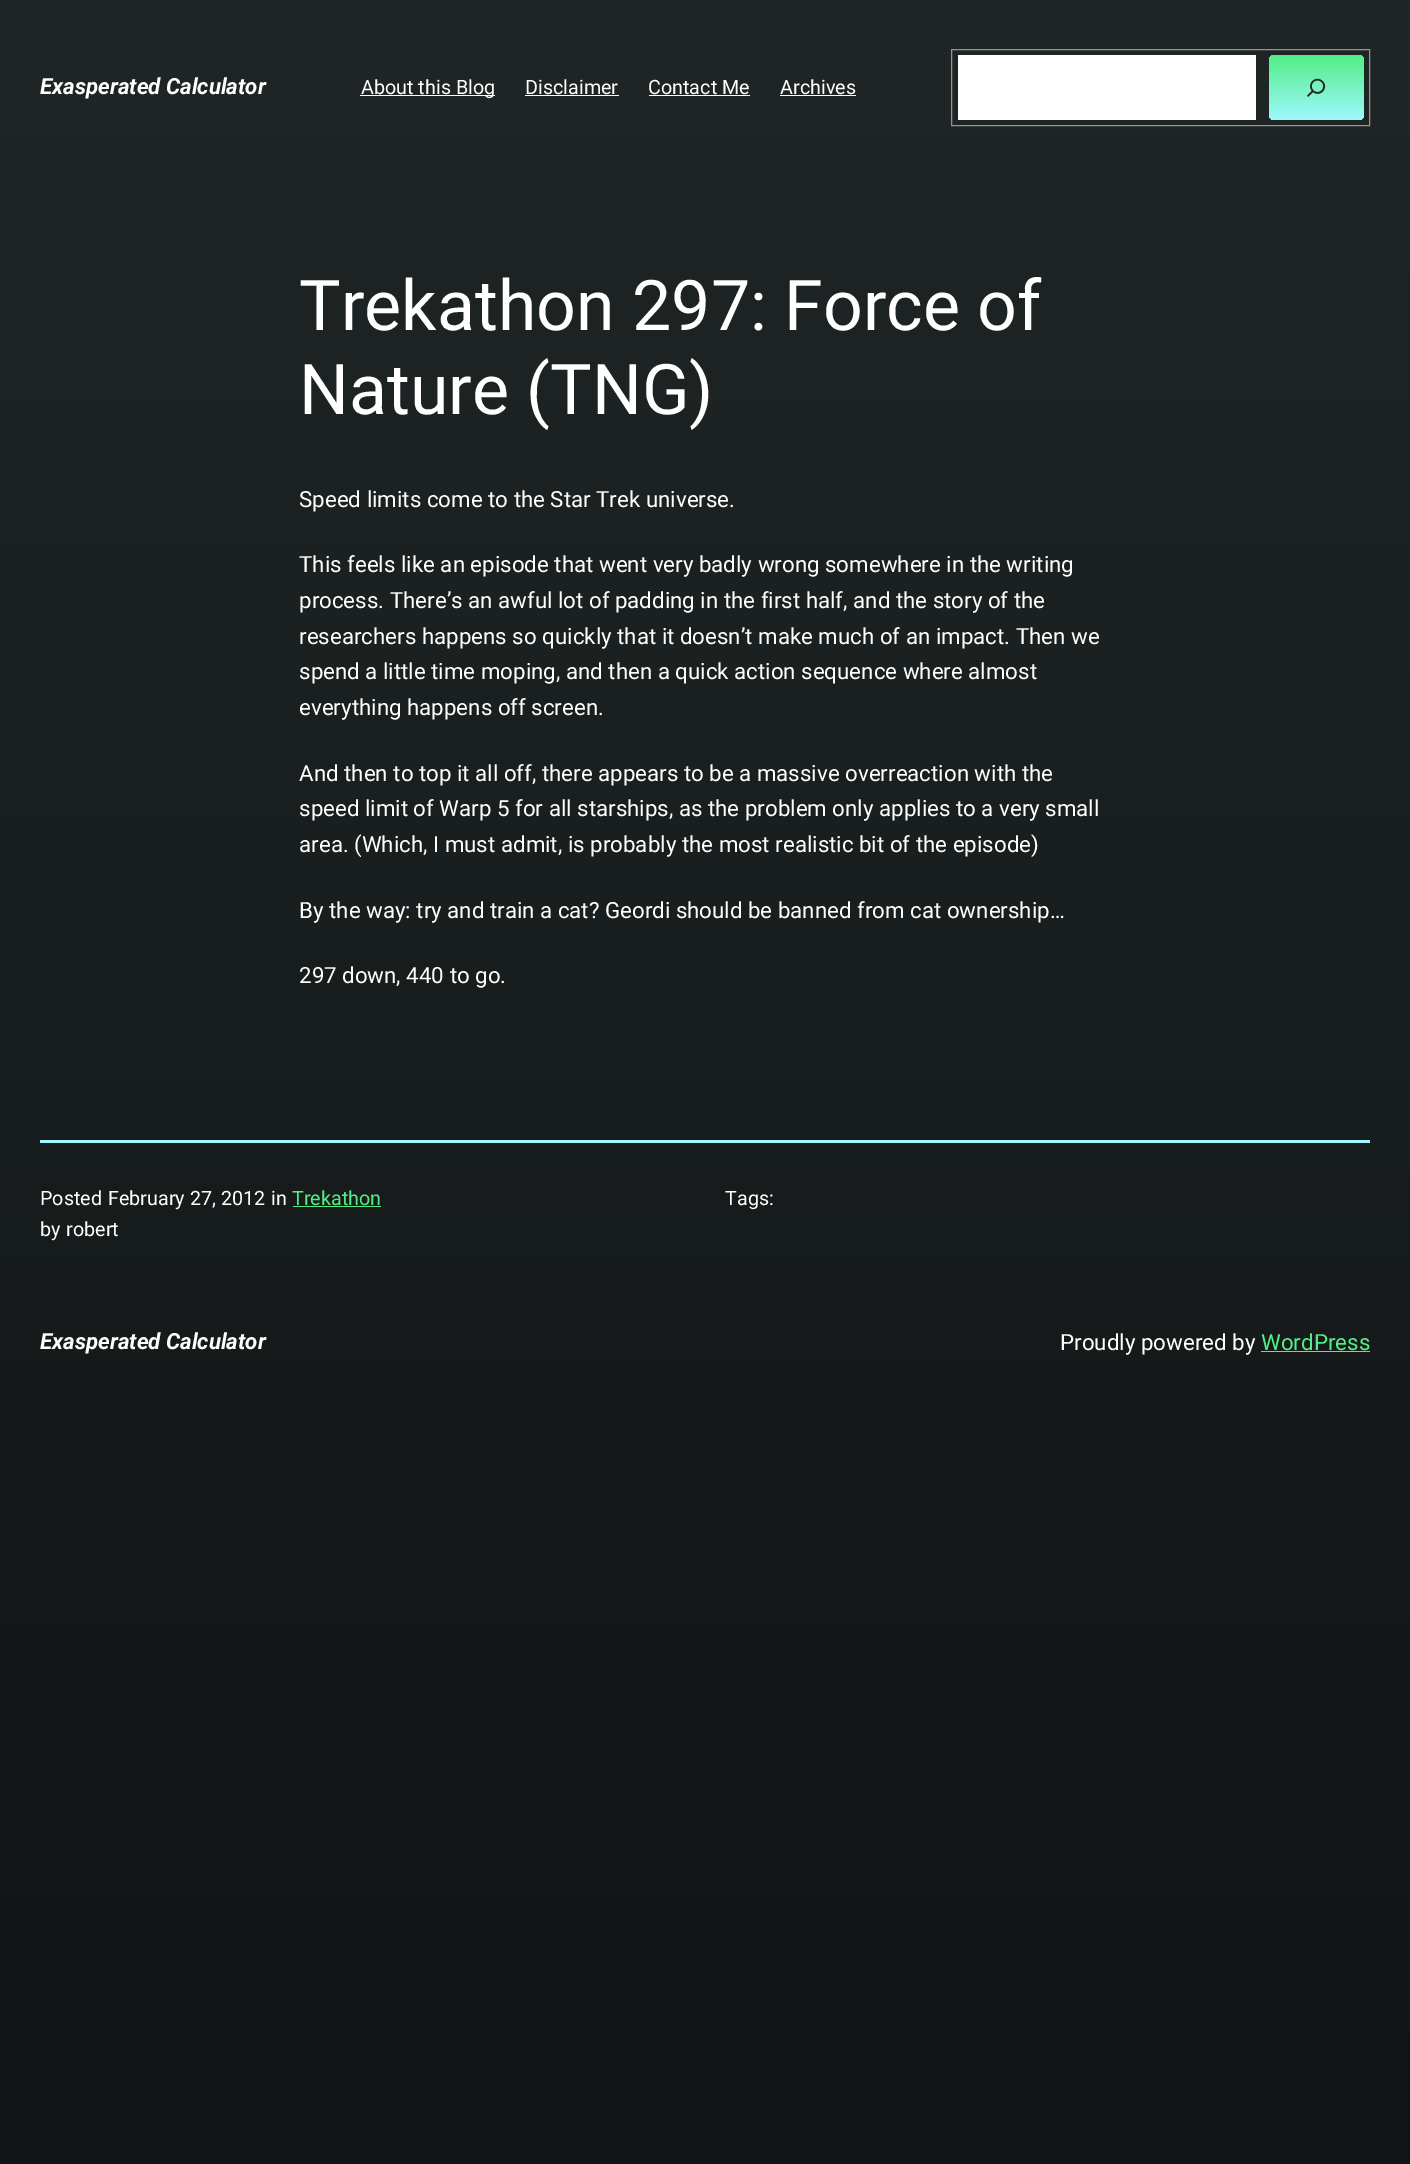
%!PS
<< /PageSize [1410 2164] >> setpagedevice
/rgb { dup -16 bitshift 255 div exch dup -8 bitshift 255 and 255 div exch 255 and 255 div setrgbcolor } def
/font { [ exch dup neg 0 0 3 -1 roll 0 0 ] selectfont } def
/text { moveto show } def
/roundrect { 5 dict begin { /r /h /w /y /x } { exch def } forall
  x r add y moveto x w add y 2 copy h add r arct x w add y h add x 1 index r arct
  x y h add x y r arct x y 2 copy exch w add exch r arct closepath end } def
/picture { 5 dict begin { /h /w /y /x /name } { exch def } forall
  gsave x y translate w h scale
  w h 8 [w 0 0 h 0 0] name (r) file false 3 colorimage grestore end } def
0 2164 translate 1 -1 scale
4 setmiterlimit
/s1 { /Roboto-BoldItalic 22.3 font 16#FFFFFF rgb } def
/s2 { /Roboto-Regular 19.75 font 16#FFFFFF rgb } def
/s3 { /Roboto-Regular 69.9 font 16#FFFFFF rgb } def
/s4 { /Roboto-Regular 22.3 font 16#FFFFFF rgb } def
/s5 { /Roboto-Regular 19.75 font 16#53ED85 rgb } def
/s6 { /Roboto-Regular 22.3 font 16#53ED85 rgb } def
16#FFFFFF rgb
0 0 1410 2164 rectfill
gsave 0 0 moveto 1410 0 lineto 1410 2164 lineto 0 2164 lineto closepath clip newpath
<< /ShadingType 2 /ColorSpace /DeviceRGB /Coords [705 0 705 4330] /Extend [true true] /Function << /FunctionType 2 /Domain [0 1] /C0 [0.125 0.149 0.149] /C1 [0.004 0.004 0.004] /N 1 >> >> shfill grestore
s1
(Exasperated Calculator) 40 94 text
360 95 135 1 rectfill
s2
(About this Blog) 361 94 text
(Disclaimer) 525 94 text
525 95 94 1 rectfill
(Contact Me) 648 94 text
649 95 101 1 rectfill
(Archives) 780 94 text
780 95 76 1 rectfill
16#949494 rgb
951.5 49.5 418 76 rectstroke
16#FFFFFF rgb
958 55 298 65 rectfill
gsave 1269 55 95 65 6 roundrect clip newpath
<< /ShadingType 2 /ColorSpace /DeviceRGB /Coords [1316 55 1316 120] /Extend [true true] /Function << /FunctionType 2 /Domain [0 1] /C0 [0.325 0.929 0.522] /C1 [0.62 0.976 0.992] /N 1 >> >> shfill grestore
(pic1.raw) 1307 78 19 19 picture
s3
(Trekathon 297: Force of) 299 330 text
(Nature \(TNG\)) 299 414 text
s4
(Speed limits come to the Star Trek universe.) 299 507 text
(This feels like an episode that went very badly wrong somewhere in the writing) 299 572 text
(process. There’s an awful lot of padding in the first half, and the story of the) 299 608 text
(researchers happens so quickly that it doesn’t make much of an impact. Then we) 299 644 text
(spend a little time moping, and then a quick action sequence where almost) 299 679 text
(everything happens off screen.) 299 715 text
(And then to top it all off, there appears to be a massive overreaction with the) 299 781 text
(speed limit of Warp 5 for all starships, as the problem only applies to a very small) 299 816 text
(area. \(Which, I must admit, is probably the most realistic bit of the episode\)) 299 852 text
(By the way: try and train a cat? Geordi should be banned from cat ownership…) 299 918 text
(297 down, 440 to go.) 299 983 text
16#9EF9FD rgb
40 1140 1330 3 rectfill
s2
(Posted) 40 1205 text
(February 27, 2012) 108 1205 text
(in) 271 1205 text
s5
(Trekathon) 292 1205 text
293 1206 88 1 rectfill
s2
(by) 40 1236 text
(robert) 66 1236 text
(Tags:) 725 1205 text
s1
(Exasperated Calculator) 40 1349 text
s4
(Proudly powered by) 1060 1350 text
s6
(WordPress) 1261 1350 text
1261 1351 109 1 rectfill
showpage
